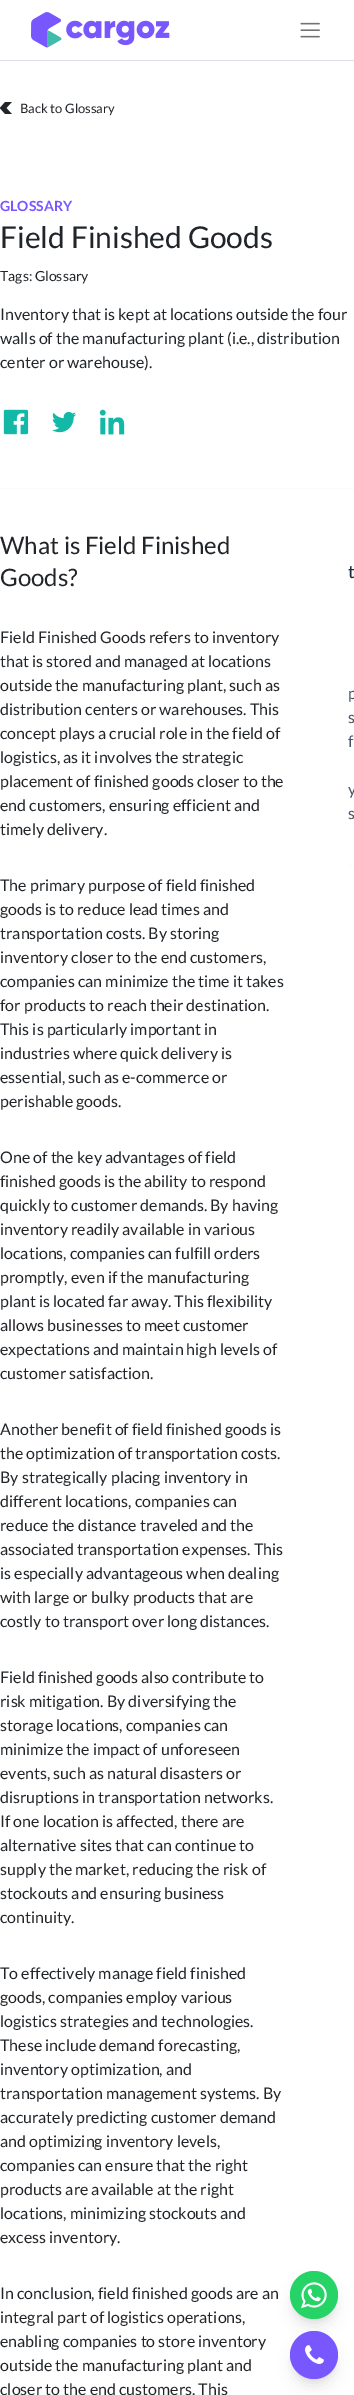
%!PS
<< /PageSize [354 2395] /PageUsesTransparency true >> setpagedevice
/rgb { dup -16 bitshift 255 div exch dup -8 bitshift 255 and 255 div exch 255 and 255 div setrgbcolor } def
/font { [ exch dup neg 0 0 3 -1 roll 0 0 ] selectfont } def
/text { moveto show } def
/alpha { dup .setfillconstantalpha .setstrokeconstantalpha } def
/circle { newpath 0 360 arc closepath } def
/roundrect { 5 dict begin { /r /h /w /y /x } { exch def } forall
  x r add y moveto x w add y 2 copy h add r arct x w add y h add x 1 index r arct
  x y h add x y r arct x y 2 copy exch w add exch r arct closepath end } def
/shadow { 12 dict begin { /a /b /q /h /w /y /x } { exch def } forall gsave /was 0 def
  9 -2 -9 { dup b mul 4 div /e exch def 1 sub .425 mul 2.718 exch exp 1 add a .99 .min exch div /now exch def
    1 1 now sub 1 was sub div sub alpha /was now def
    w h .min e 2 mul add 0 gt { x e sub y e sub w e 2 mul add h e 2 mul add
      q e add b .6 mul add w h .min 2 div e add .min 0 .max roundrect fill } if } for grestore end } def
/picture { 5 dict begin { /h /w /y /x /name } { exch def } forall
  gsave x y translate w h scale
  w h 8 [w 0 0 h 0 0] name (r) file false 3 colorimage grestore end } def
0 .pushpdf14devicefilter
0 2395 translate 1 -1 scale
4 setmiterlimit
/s1 { /Lato-Regular 13 font 16#212529 rgb } def
/s2 { /Lato-Bold 14 font 16#7957FF rgb } def
/s3 { /Lato-Regular 30 font 16#212529 rgb } def
/s4 { /Lato-Regular 14 font 16#212529 rgb } def
/s5 { /Lato-Regular 16 font 16#212529 rgb } def
/s6 { /Lato-Regular 24 font 16#212529 rgb } def
/s7 { /Lato-Regular 18 font 16#1E293B rgb } def
/s8 { /Lato-Regular 16 font 16#475569 rgb } def
16#FFFFFF rgb
0 0 354 2395 rectfill
16#DEE2E6 rgb
0 60 354 1 rectfill
(pic1.raw) 31 12 139 36 picture
(pic2.raw) 300 22 20 16 picture
(pic3.raw) 0 102 12 12 picture
s1
(Back to Glossary) 20 113 text
s2
(GLOSSARY) 0 211 text
s3
(Field Finished Goods) 0 248 text
s4
(Tags: Glossary) 0 281 text
s5
(Inventory that is kept at locations outside the four) 0 320 text
(walls of the manufacturing plant \(i.e., distribution) 0 344 text
(center or warehouse\).) 0 368 text
(pic4.raw) 3 409 26 26 picture
(pic5.raw) 52 411 24 22 picture
(pic6.raw) 99 409 26 26 picture
16#F8FAFC rgb
0 488 354 1 rectfill
s6
(What is Field Finished) 0 554 text
(Goods?) 0 586 text
s5
(Field Finished Goods refers to inventory) 0 643 text
(that is stored and managed at locations) 0 667 text
(outside the manufacturing plant, such as) 0 691 text
(distribution centers or warehouses. This) 0 715 text
(concept plays a crucial role in the field of) 0 739 text
(logistics, as it involves the strategic) 0 763 text
(placement of finished goods closer to the) 0 787 text
(end customers, ensuring efficient and) 0 811 text
(timely delivery.) 0 835 text
(The primary purpose of field finished) 0 891 text
(goods is to reduce lead times and) 0 915 text
(transportation costs. By storing) 0 939 text
(inventory closer to the end customers,) 0 963 text
(companies can minimize the time it takes) 0 987 text
(for products to reach their destination.) 0 1011 text
(This is particularly important in) 0 1035 text
(industries where quick delivery is) 0 1059 text
(essential, such as e-commerce or) 0 1083 text
(perishable goods.) 0 1107 text
(One of the key advantages of field) 0 1163 text
(finished goods is the ability to respond) 0 1187 text
(quickly to customer demands. By having) 0 1211 text
(inventory readily available in various) 0 1235 text
(locations, companies can fulfill orders) 0 1259 text
(promptly, even if the manufacturing) 0 1283 text
(plant is located far away. This flexibility) 0 1307 text
(allows businesses to meet customer) 0 1331 text
(expectations and maintain high levels of) 0 1355 text
(customer satisfaction.) 0 1379 text
(Another benefit of field finished goods is) 0 1435 text
(the optimization of transportation costs.) 0 1459 text
(By strategically placing inventory in) 0 1483 text
(different locations, companies can) 0 1507 text
(reduce the distance traveled and the) 0 1531 text
(associated transportation expenses. This) 0 1555 text
(is especially advantageous when dealing) 0 1579 text
(with large or bulky products that are) 0 1603 text
(costly to transport over long distances.) 0 1627 text
(Field finished goods also contribute to) 0 1683 text
(risk mitigation. By diversifying the) 0 1707 text
(storage locations, companies can) 0 1731 text
(minimize the impact of unforeseen) 0 1755 text
(events, such as natural disasters or) 0 1779 text
(disruptions in transportation networks.) 0 1803 text
(If one location is affected, there are) 0 1827 text
(alternative sites that can continue to) 0 1851 text
(supply the market, reducing the risk of) 0 1875 text
(stockouts and ensuring business) 0 1899 text
(continuity.) 0 1923 text
(To effectively manage field finished) 0 1979 text
(goods, companies employ various) 0 2003 text
(logistics strategies and technologies.) 0 2027 text
(These include demand forecasting,) 0 2051 text
(inventory optimization, and) 0 2075 text
(transportation management systems. By) 0 2099 text
(accurately predicting customer demand) 0 2123 text
(and optimizing inventory levels,) 0 2147 text
(companies can ensure that the right) 0 2171 text
(products are available at the right) 0 2195 text
(locations, minimizing stockouts and) 0 2219 text
(excess inventory.) 0 2243 text
(In conclusion, field finished goods are an) 0 2299 text
(integral part of logistics operations,) 0 2323 text
(enabling companies to store inventory) 0 2347 text
(outside the manufacturing plant and) 0 2371 text
(closer to the end customers. This) 0 2395 text
s7
(t) 348 578 text
16#F8FAFC rgb
348 865 6 1 rectfill
s8
(p) 348 699 text
(s) 348 723 text
(f) 348 747 text
(y) 348 795 text
(s) 348 819 text
16#000000 rgb
294 2279 40 40 20 3 0.1 shadow
293 2284 42 42 21 7.5 0.1 shadow
16#25D366 rgb
314 2295 24 circle fill
(pic7.raw) 301 2282 26 27 picture
16#000000 rgb
294 2339 40 40 20 3 0.1 shadow
293 2344 42 42 21 7.5 0.1 shadow
16#7957FF rgb
314 2355 24 circle fill
(pic8.raw) 305 2345 19 19 picture
.poppdf14devicefilter showpage
